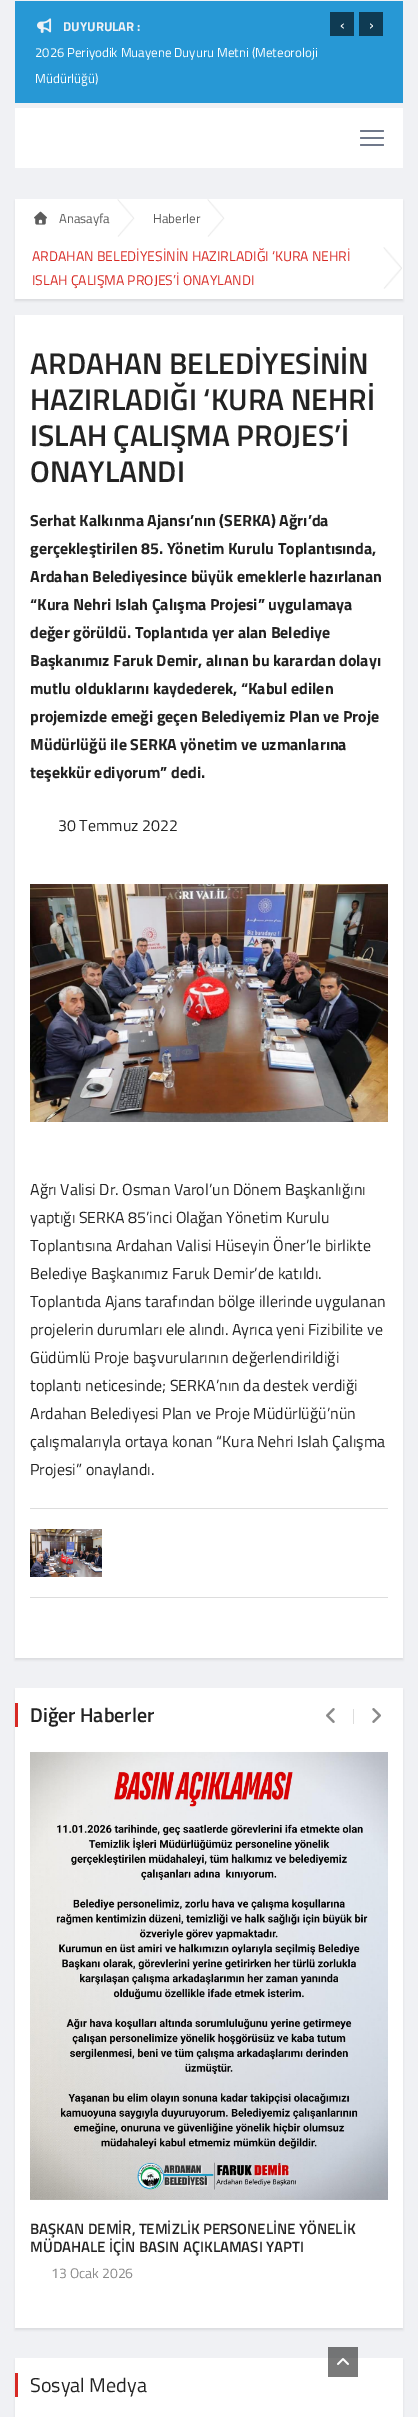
%!PS
<< /PageSize [418 2417] /PageUsesTransparency true >> setpagedevice
/rgb { dup -16 bitshift 255 div exch dup -8 bitshift 255 and 255 div exch 255 and 255 div setrgbcolor } def
/font { [ exch dup neg 0 0 3 -1 roll 0 0 ] selectfont } def
/text { moveto show } def
/alpha { dup .setfillconstantalpha .setstrokeconstantalpha } def
/roundrect { 5 dict begin { /r /h /w /y /x } { exch def } forall
  x r add y moveto x w add y 2 copy h add r arct x w add y h add x 1 index r arct
  x y h add x y r arct x y 2 copy exch w add exch r arct closepath end } def
/shadow { 12 dict begin { /a /b /q /h /w /y /x } { exch def } forall gsave /was 0 def
  9 -2 -9 { dup b mul 4 div /e exch def 1 sub .425 mul 2.718 exch exp 1 add a .99 .min exch div /now exch def
    1 1 now sub 1 was sub div sub alpha /was now def
    w h .min e 2 mul add 0 gt { x e sub y e sub w e 2 mul add h e 2 mul add
      q e add b .6 mul add w h .min 2 div e add .min 0 .max roundrect fill } if } for grestore end } def
/picture { 5 dict begin { /h /w /y /x /name } { exch def } forall
  gsave x y translate w h scale
  w h 8 [w 0 0 h 0 0] name (r) file false 3 colorimage grestore end } def
0 .pushpdf14devicefilter
0 2417 translate 1 -1 scale
4 setmiterlimit
/s1 { /TitilliumWeb-Bold 13 font 16#F0F1F4 rgb } def
/s2 { /TitilliumWeb-Regular 16 font 16#FFFFFF rgb } def
/s3 { /TitilliumWeb-Regular 13 font 16#FFFFFF rgb } def
/s4 { /TitilliumWeb-Regular 13 font 16#5C5C5C rgb } def
/s5 { /TitilliumWeb-Regular 14 font 16#D72924 rgb } def
/s6 { /TitilliumWeb-SemiBold 30 font 16#232323 rgb } def
/s7 { /TitilliumWeb-Bold 16 font 16#232323 rgb } def
/s8 { /TitilliumWeb-Regular 16 font 16#232323 rgb } def
/s9 { /TitilliumWeb-SemiBold 20 font 16#232323 rgb } def
/s10 { /TitilliumWeb-SemiBold 15 font 16#232323 rgb } def
/s11 { /TitilliumWeb-Regular 14 font 16#8A8A8A rgb } def
/s12 { /TitilliumWeb-Regular 20 font 16#232323 rgb } def
16#F0F1F4 rgb
0 0 418 2417 rectfill
16#737475 rgb
328 2347 30 11 rectfill
16#2798D5 rgb
15 1 388 102 rectfill
(pic1.raw) 37 18 15 15 picture
s1
(DUYURULAR :) 63 31 text
16#0F3B53 rgb
330 12 24 24 rectfill
s2
(‹) 340 30 text
16#0F3B53 rgb
359 12 24 24 rectfill
s2
(›) 369 30 text
s3
(2026 Periyodik Muayene Duyuru Metni \(Meteoroloji) 35 57 text
(Müdürlüğü\)) 35 83 text
15 108 388 60 rectfill
16#70798B rgb
360 144 24 2 1 roundrect fill
360 137 24 2 1 roundrect fill
360 130 24 2 1 roundrect fill
16#000000 rgb
15 201 388 100 0 1 0.08 shadow
16#FFFFFF rgb
15 199 388 100 rectfill
(pic2.raw) 34 211 13 14 picture
s4
(Anasayfa) 59 223 text
(pic3.raw) 117 199 18 38 picture
(Haberler) 153 223 text
(pic3.raw) 207 199 18 38 picture
s5
(ARDAHAN BELEDİYESİNİN HAZIRLADIĞI ‘KURA NEHRİ) 32 261 text
(pic4.raw) 383 247 19 42 picture
(ISLAH ÇALIŞMA PROJES’İ ONAYLANDI) 32 285 text
16#000000 rgb
15 317 388 1343 0 1 0.08 shadow
16#FFFFFF rgb
15 315 388 1343 rectfill
s6
(ARDAHAN BELEDİYESİNİN) 30 374 text
(HAZIRLADIĞI ‘KURA NEHRİ) 30 410 text
(ISLAH ÇALIŞMA PROJES’İ) 30 446 text
(ONAYLANDI) 30 482 text
s7
(Serhat Kalkınma Ajansı’nın \(SERKA\) Ağrı’da) 30 526 text
(gerçekleştirilen 85. Yönetim Kurulu Toplantısında,) 30 554 text
(Ardahan Belediyesince büyük emeklerle hazırlanan) 30 582 text
(“Kura Nehri Islah Çalışma Projesi” uygulamaya) 30 610 text
(değer görüldü. Toplantıda yer alan Belediye) 30 638 text
(Başkanımız Faruk Demir, alınan bu karardan dolayı) 30 666 text
(mutlu olduklarını kaydederek, “Kabul edilen) 30 694 text
(projemizde emeği geçen Belediyemiz Plan ve Proje) 30 722 text
(Müdürlüğü ile SERKA yönetim ve uzmanlarına) 30 750 text
(teşekkür ediyorum” dedi.) 30 778 text
s8
(30 Temmuz 2022) 58 831 text
(pic5.raw) 30 884 358 238 picture
(Ağrı Valisi Dr. Osman Varol’un Dönem Başkanlığını) 30 1195 text
(yaptığı SERKA 85’inci Olağan Yönetim Kurulu) 30 1223 text
(Toplantısına Ardahan Valisi Hüseyin Öner’le birlikte) 30 1251 text
(Belediye Başkanımız Faruk Demir’de katıldı.) 30 1279 text
(Toplantıda Ajans tarafından bölge illerinde uygulanan) 30 1307 text
(projelerin durumları ele alındı. Ayrıca yeni Fizibilite ve) 30 1335 text
(Güdümlü Proje başvurularının değerlendirildiği) 30 1363 text
(toplantı neticesinde; SERKA’nın da destek verdiği) 30 1391 text
(Ardahan Belediyesi Plan ve Proje Müdürlüğü’nün) 30 1419 text
(çalışmalarıyla ortaya konan “Kura Nehri Islah Çalışma) 30 1447 text
(Projesi” onaylandı.) 30 1475 text
16#DDDDDD rgb
30 1508 358 1 rectfill
30 1597 358 1 rectfill
(pic6.raw) 30 1529 72 48 picture
16#000000 rgb
15 1690 388 640 0 1 0.08 shadow
16#FFFFFF rgb
15 1688 388 640 rectfill
16#D72924 rgb
15 1703 3 24 rectfill
s9
(Diğer Haberler) 30 1722 text
(pic7.raw) 326 1708 9 15 picture
16#DDDDDD rgb
353 1709 1 15 rectfill
(pic8.raw) 372 1708 9 15 picture
(pic9.raw) 30 1752 358 448 picture
s10
(BAŞKAN DEMİR, TEMİZLİK PERSONELİNE YÖNELİK) 30 2234 text
(MÜDAHALE İÇİN BASIN AÇIKLAMASI YAPTI) 30 2252 text
s11
(13 Ocak 2026) 51 2278 text
16#000000 rgb
15 2360 388 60 0 1 0.08 shadow
16#FFFFFF rgb
15 2358 388 59 rectfill
16#7A7A7A rgb
328 2358 30 19 rectfill
16#D72924 rgb
15 2373 3 24 rectfill
s12
(Sosyal Medya) 30 2392 text
(pic10.raw) 337 2358 12 7 picture
.poppdf14devicefilter showpage
